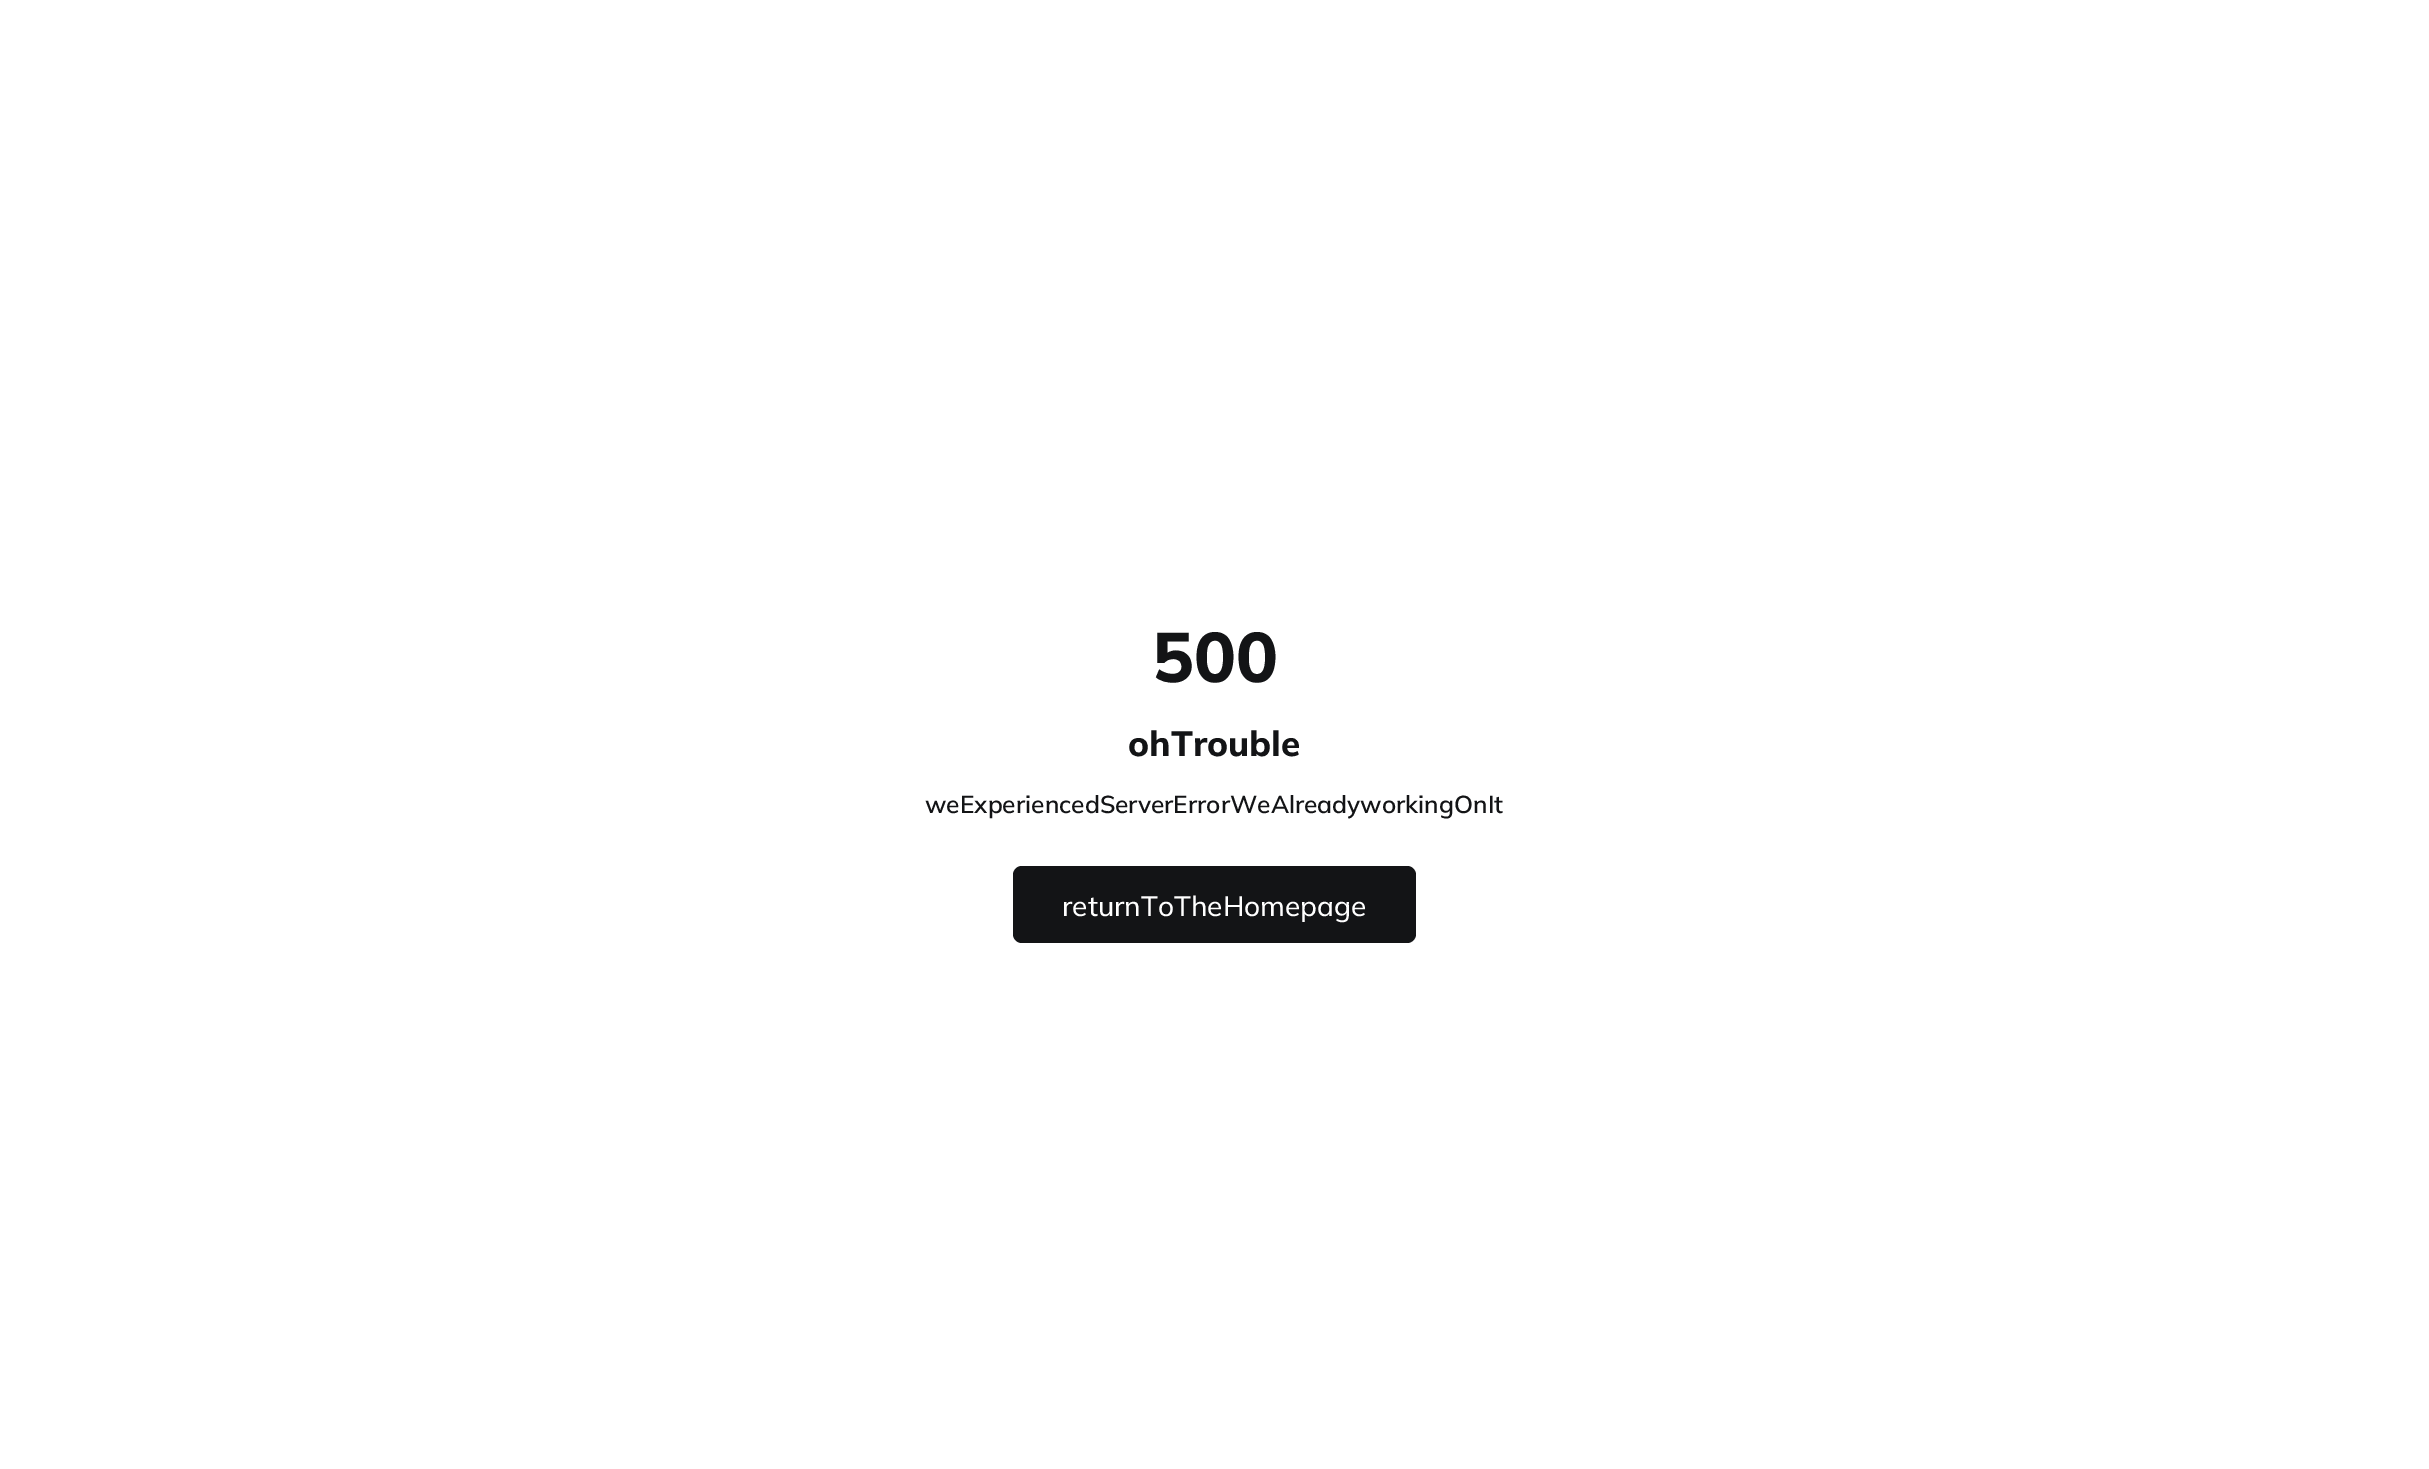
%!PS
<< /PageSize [2429 1469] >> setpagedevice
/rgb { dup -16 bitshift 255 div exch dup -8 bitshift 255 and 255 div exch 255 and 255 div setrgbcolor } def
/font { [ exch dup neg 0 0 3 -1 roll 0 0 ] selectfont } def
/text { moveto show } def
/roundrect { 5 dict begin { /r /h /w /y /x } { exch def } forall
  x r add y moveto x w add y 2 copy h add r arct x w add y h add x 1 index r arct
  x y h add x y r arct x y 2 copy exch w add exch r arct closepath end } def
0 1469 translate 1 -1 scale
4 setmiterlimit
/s1 { /Mulish-ExtraBold 70 font 16#131416 rgb } def
/s2 { /Mulish-ExtraBold 35 font 16#131416 rgb } def
/s3 { /Mulish-SemiBold 24.5 font 16#131416 rgb } def
/s4 { /Mulish-Medium 28 font 16#FFFFFF rgb } def
16#FFFFFF rgb
0 0 2429 1469 rectfill
s1
(500) 1152 682 text
s2
(ohTrouble) 1128 756 text
s3
(weExperiencedServerErrorWeAlreadyworkingOnIt) 925 813 text
1013 866 403 77 9 roundrect fill
s4
(returnToTheHomepage) 1062 916 text
showpage
